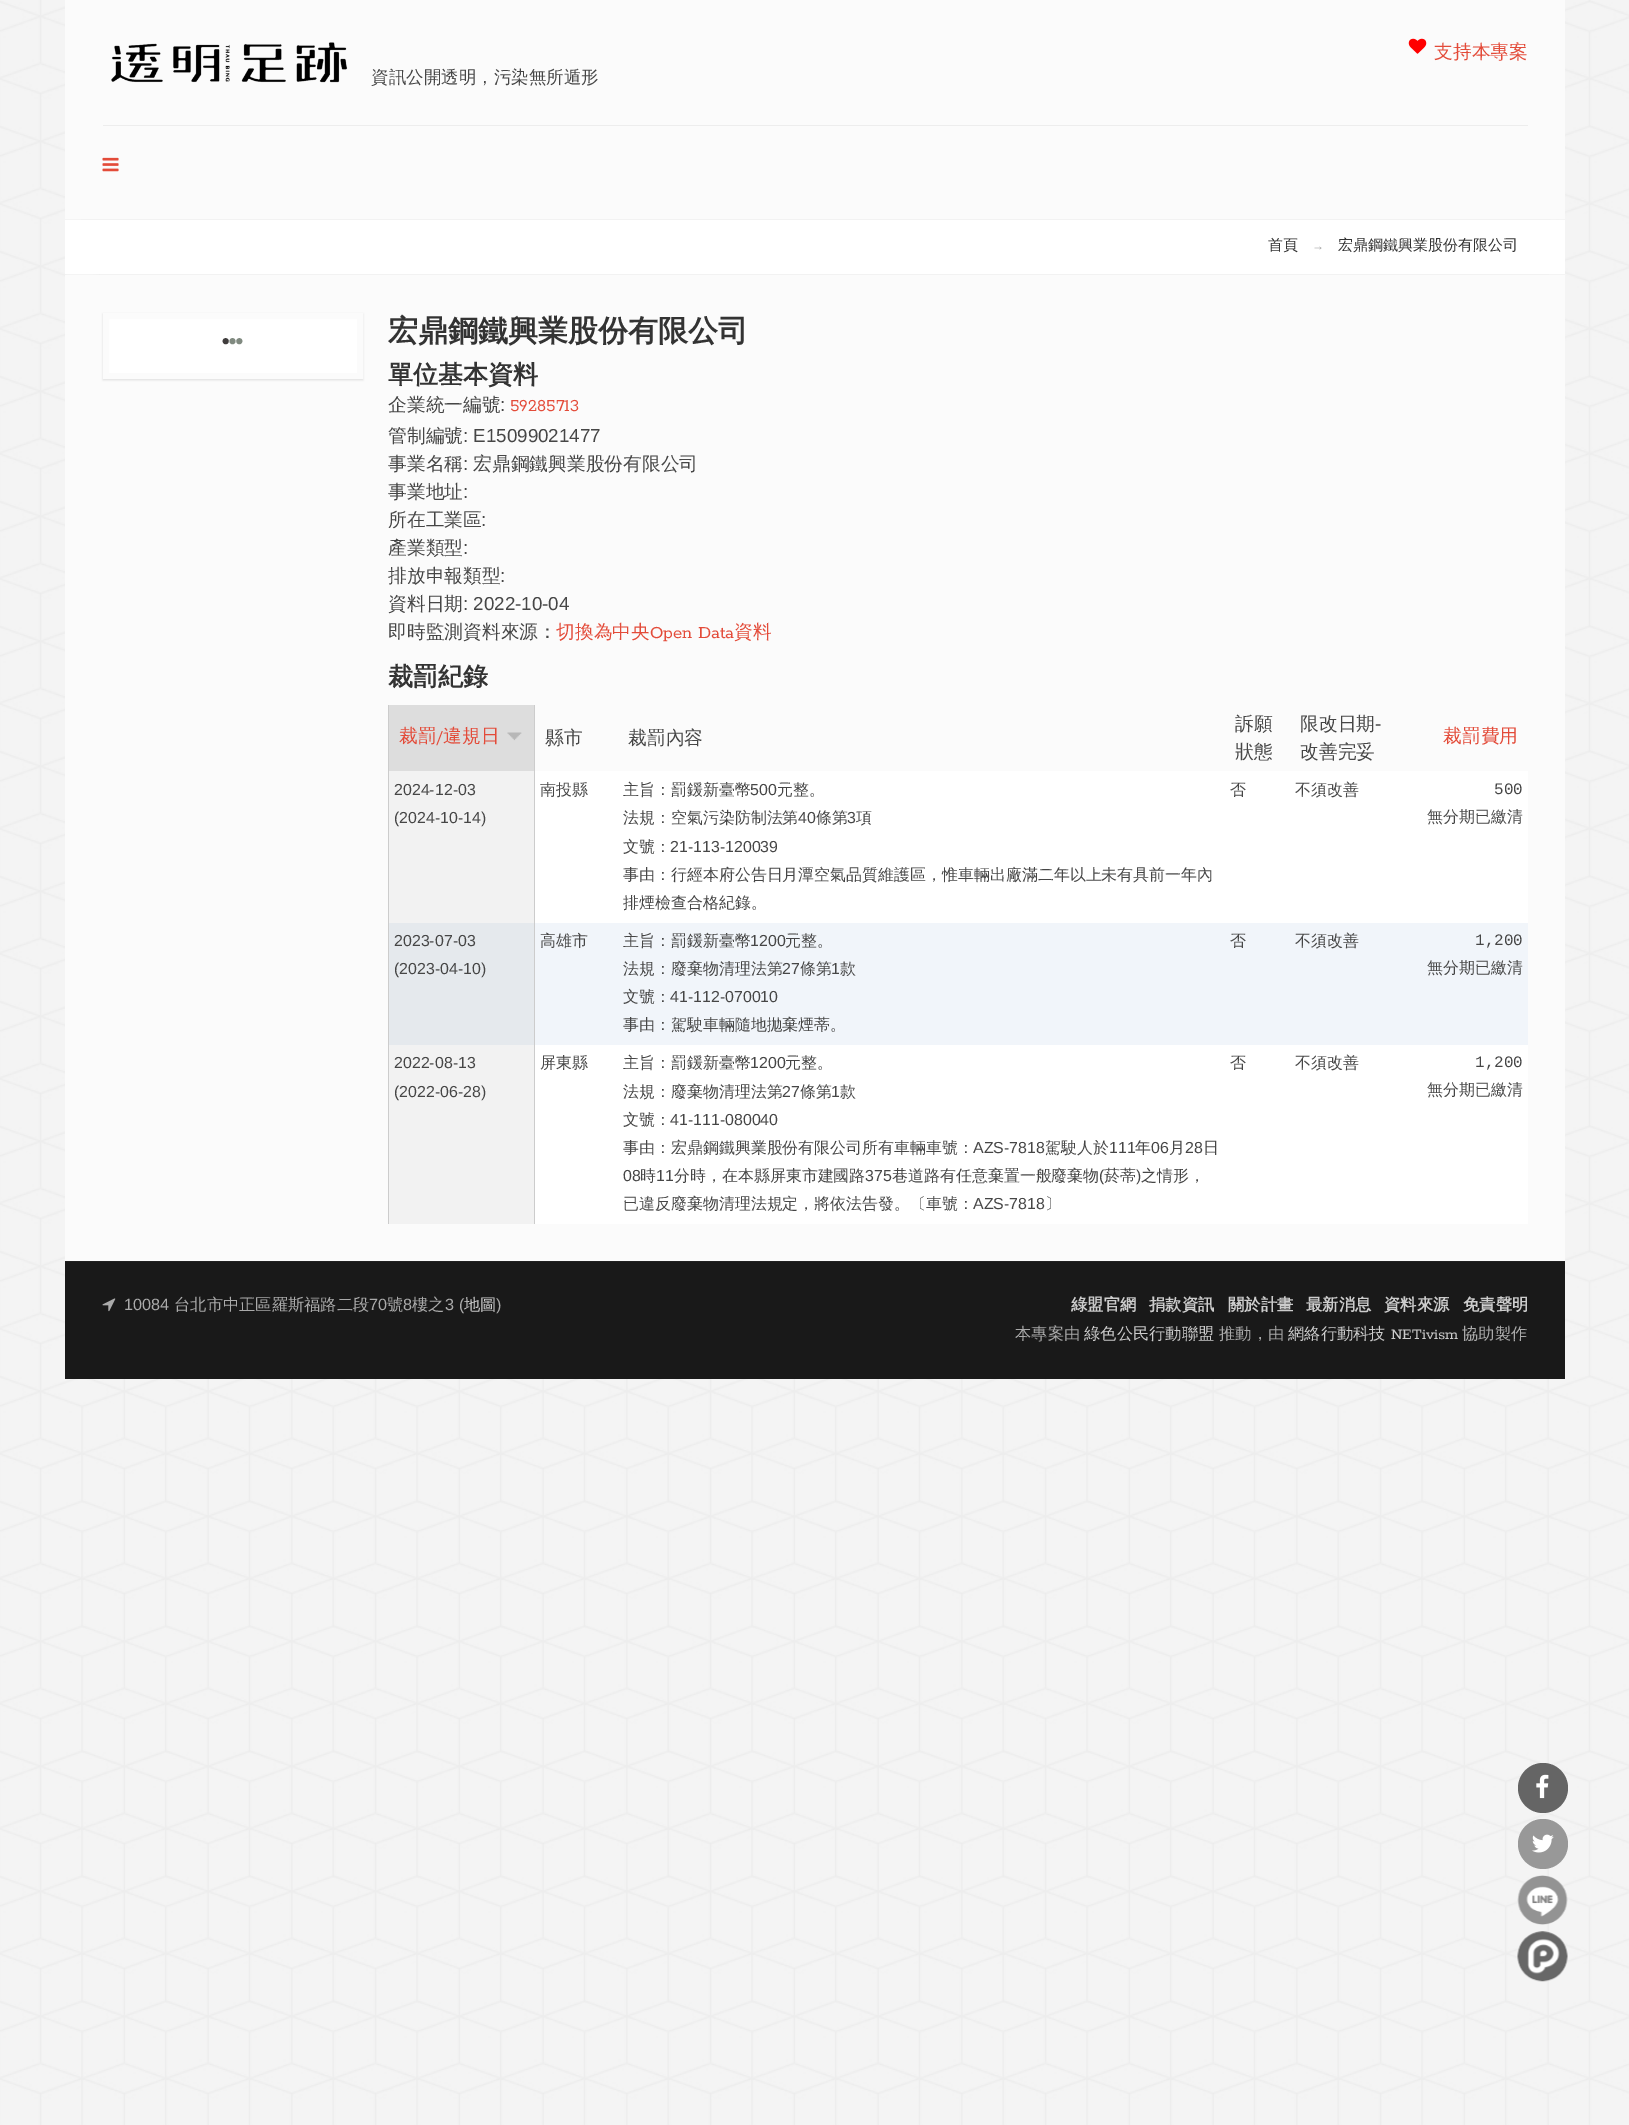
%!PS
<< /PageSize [1629 2125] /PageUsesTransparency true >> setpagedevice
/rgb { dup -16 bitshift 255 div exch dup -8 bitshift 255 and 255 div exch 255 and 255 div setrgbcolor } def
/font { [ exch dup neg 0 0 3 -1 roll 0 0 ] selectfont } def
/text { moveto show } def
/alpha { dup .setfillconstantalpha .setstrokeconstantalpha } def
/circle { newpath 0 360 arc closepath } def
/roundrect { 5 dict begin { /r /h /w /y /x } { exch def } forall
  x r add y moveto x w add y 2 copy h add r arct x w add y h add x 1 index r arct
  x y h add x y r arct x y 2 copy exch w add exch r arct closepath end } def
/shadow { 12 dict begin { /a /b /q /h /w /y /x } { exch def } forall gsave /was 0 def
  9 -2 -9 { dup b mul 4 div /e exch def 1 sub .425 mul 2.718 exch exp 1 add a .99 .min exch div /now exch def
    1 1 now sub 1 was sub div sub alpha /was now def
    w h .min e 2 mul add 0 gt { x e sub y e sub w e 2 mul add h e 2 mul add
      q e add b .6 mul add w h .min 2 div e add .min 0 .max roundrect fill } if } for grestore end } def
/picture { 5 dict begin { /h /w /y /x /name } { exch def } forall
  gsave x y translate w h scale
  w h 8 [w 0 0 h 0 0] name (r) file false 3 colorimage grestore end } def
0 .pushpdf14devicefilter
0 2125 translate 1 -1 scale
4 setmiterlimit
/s1 { /WenQuanYiZenHei-Medium 17.5 font 16#464646 rgb } def
/s2 { /WenQuanYiZenHei-Medium 18.75 font 16#E34B39 rgb } def
/s3 { /WenQuanYiZenHei-Medium 15 font 16#333333 rgb } def
/s4 { /LiberationSans-Regular 12 font 16#999999 rgb } def
/s5 { /WenQuanYiZenHei-Bold 30 font 16#333333 rgb } def
/s6 { /WenQuanYiZenHei-Bold 25 font 16#333333 rgb } def
/s7 { /WenQuanYiZenHei-Medium 18.75 font 16#464646 rgb } def
/s8 { /LiberationSans-Regular 18.75 font 16#464646 rgb } def
/s9 { /Rokkitt-Regular 18.75 font 16#E34B39 rgb } def
/s10 { /LiberationSans-Regular 15.95 font 16#464646 rgb } def
/s11 { /WenQuanYiZenHei-Medium 15.95 font 16#464646 rgb } def
/s12 { /LiberationMono-Regular 15.95 font 16#464646 rgb } def
/s13 { /LiberationSans-Regular 16.25 font 16#AAAAAA rgb } def
/s14 { /WenQuanYiZenHei-Medium 16.25 font 16#AAAAAA rgb } def
/s15 { /WenQuanYiZenHei-Medium 16.25 font 16#CCCCCC rgb } def
/s16 { /WenQuanYiZenHei-Bold 16.25 font 16#CCCCCC rgb } def
/s17 { /Rokkitt-Regular 16.25 font 16#CCCCCC rgb } def
16#FFFFFF rgb
0 0 1629 2125 rectfill
(pic1.raw) 0 0 1629 2125 picture
16#FBFBFB rgb
65 0 1500 219 rectfill
(pic2.raw) 111 42 237 41 picture
s1
(資訊公開透明，污染無所遁形) 371 83 text
(pic3.raw) 1408 38 19 16 picture
s2
(支持本專案) 1434 58 text
16#EDEDED rgb
103 125 1425 1 rectfill
(pic4.raw) 102 157 17 15 picture
16#FFFFFF rgb
65 220 1500 54 rectfill
16#F2F2F2 rgb
81 219 1468 1 rectfill
100 274 1449 1 rectfill
s3
(首頁) 1268 250 text
s4
(→) 1312 250 text
s3
(宏鼎鋼鐵興業股份有限公司) 1338 250 text
16#FBFBFB rgb
65 275 1500 986 rectfill
16#D4D4D4 rgb
103 314 260 66 0 1 1 shadow
16#FFFFFF rgb
106 316 moveto 360 316 lineto 360 376 lineto 106 376 lineto closepath gsave fill grestore
16#FBFBFB rgb
6 setlinewidth
stroke
16#403D3D rgb
225.7 341.2 3 circle fill
16#808A80 rgb
232.5 341.2 3 circle fill
239.3 341.2 3 circle fill
s5
(宏鼎鋼鐵興業股份有限公司) 388 341 text
s6
(單位基本資料) 388 383 text
s7
(企業統一編號) 388 411 text
s8
(:) 500 411 text
s9
(59285713) 510 411 text
s7
(管制編號) 388 442 text
s8
(: E15099021477) 463 442 text
s7
(事業名稱) 388 470 text
s8
(:) 463 470 text
s7
(宏鼎鋼鐵興業股份有限公司) 473 470 text
(事業地址) 388 498 text
s8
(:) 463 498 text
s7
(所在工業區) 388 526 text
s8
(:) 481 526 text
s7
(產業類型) 388 554 text
s8
(:) 463 554 text
s7
(排放申報類型) 388 582 text
s8
(:) 500 582 text
s7
(資料日期) 388 610 text
s8
(: 2022-10-04) 463 610 text
s7
(即時監測資料來源：) 388 638 text
s2
(切換為中央) 556 638 text
s9
(Open Data) 650 638 text
s2
(資料) 734 638 text
s6
(裁罰紀錄) 388 685 text
16#DDDDDD rgb
389 705 145 66 rectfill
16#CCCCCC rgb
534 705 1 519 rectfill
388 705 1 519 rectfill
s2
(裁罰) 399 742 text
s9
(/) 436 742 text
s2
(違規日) 443 742 text
(pic5.raw) 507 732 15 9 picture
s7
(縣市) 545 744 text
(裁罰內容) 628 744 text
(訴願) 1235 730 text
(狀態) 1235 758 text
(限改日期) 1300 730 text
s8
(-) 1375 730 text
s7
(改善完妥) 1300 758 text
s2
(裁罰費用) 1443 742 text
16#F2F2F2 rgb
389 771 145 152 rectfill
s10
(2024-12-03) 394 795 text
(\(2024-10-14\)) 394 823 text
16#FFFFFF rgb
535 771 993 152 rectfill
s11
(南投縣) 540 795 text
(主旨：罰鍰新臺幣) 623 795 text
s10
(500) 750 795 text
s11
(元整。) 777 795 text
(法規：空氣污染防制法第) 623 823 text
s10
(40) 798 823 text
s11
(條第) 816 823 text
s10
(3) 847 823 text
s11
(項) 856 823 text
(文號：) 623 852 text
s10
(21-113-120039) 670 852 text
s11
(事由：行經本府公告日月潭空氣品質維護區，惟車輛出廠滿二年以上未有具前一年內) 623 880 text
(排煙檢查合格紀錄。) 623 908 text
(否) 1230 795 text
(不須改善) 1295 795 text
s12
(500) 1494 794 text
s11
(無分期已繳清) 1427 822 text
16#E5E9ED rgb
389 923 145 122 rectfill
s10
(2023-07-03) 394 946 text
(\(2023-04-10\)) 394 974 text
16#F1F5FA rgb
535 923 993 122 rectfill
s11
(高雄市) 540 946 text
(主旨：罰鍰新臺幣) 623 946 text
s10
(1200) 750 946 text
s11
(元整。) 785 946 text
(法規：廢棄物清理法第) 623 974 text
s10
(27) 782 974 text
s11
(條第) 800 974 text
s10
(1) 831 974 text
s11
(款) 840 974 text
(文號：) 623 1002 text
s10
(41-112-070010) 670 1002 text
s11
(事由：駕駛車輛隨地拋棄煙蒂。) 623 1030 text
(否) 1230 946 text
(不須改善) 1295 946 text
s12
(1,200) 1475 945 text
s11
(無分期已繳清) 1427 973 text
16#F2F2F2 rgb
389 1045 145 179 rectfill
s10
(2022-08-13) 394 1068 text
(\(2022-06-28\)) 394 1097 text
16#FFFFFF rgb
535 1045 993 179 rectfill
s11
(屏東縣) 540 1068 text
(主旨：罰鍰新臺幣) 623 1068 text
s10
(1200) 750 1068 text
s11
(元整。) 785 1068 text
(法規：廢棄物清理法第) 623 1097 text
s10
(27) 782 1097 text
s11
(條第) 800 1097 text
s10
(1) 831 1097 text
s11
(款) 840 1097 text
(文號：) 623 1125 text
s10
(41-111-080040) 670 1125 text
s11
(事由：宏鼎鋼鐵興業股份有限公司所有車輛車號：) 623 1153 text
s10
(AZS-7818) 973 1153 text
s11
(駕駛人於) 1045 1153 text
s10
(111) 1109 1153 text
s11
(年) 1135 1153 text
s10
(06) 1151 1153 text
s11
(月) 1169 1153 text
s10
(28) 1185 1153 text
s11
(日) 1203 1153 text
s10
(08) 623 1181 text
s11
(時) 640 1181 text
s10
(11) 656 1181 text
s11
(分時，在本縣屏東市建國路) 674 1181 text
s10
(375) 865 1181 text
s11
(巷道路有任意棄置一般廢棄物) 892 1181 text
s10
(\() 1099 1181 text
s11
(菸蒂) 1104 1181 text
s10
(\)) 1136 1181 text
s11
(之情形，) 1141 1181 text
(已違反廢棄物清理法規定，將依法告發。〔車號：) 623 1209 text
s10
(AZS-7818) 973 1209 text
s11
(〕) 1045 1209 text
(否) 1230 1068 text
(不須改善) 1295 1068 text
s12
(1,200) 1475 1067 text
s11
(無分期已繳清) 1427 1095 text
16#656565 rgb
1543 1788 25 circle fill
(pic6.raw) 1536 1774 13 25 picture
16#989898 rgb
1543 1844 25 circle fill
(pic7.raw) 1532 1834 22 19 picture
(pic8.raw) 1517 1875 51 50 picture
(pic9.raw) 1517 1931 51 51 picture
16#191919 rgb
65 1262 1500 117 rectfill
16#212121 rgb
65 1261 1500 1 rectfill
(pic10.raw) 102 1298 14 14 picture
s13
(10084) 124 1310 text
s14
(台北市中正區羅斯福路二段) 174 1310 text
s13
(70) 369 1310 text
s14
(號) 387 1310 text
s13
(8) 403 1310 text
s14
(樓之) 412 1310 text
s13
(3 \() 445 1310 text
s15
(地圖) 464 1310 text
s13
(\)) 496 1310 text
s16
(綠盟官網) 1071 1310 text
(捐款資訊) 1149 1310 text
(關於計畫) 1228 1310 text
(最新消息) 1306 1310 text
(資料來源) 1384 1310 text
(免責聲明) 1463 1310 text
s14
(本專案由) 1015 1339 text
s15
(綠色公民行動聯盟) 1084 1339 text
s14
(推動，由) 1219 1339 text
s15
(網絡行動科技) 1288 1339 text
s17
(NETivism) 1391 1339 text
s14
(協助製作) 1462 1339 text
.poppdf14devicefilter showpage
